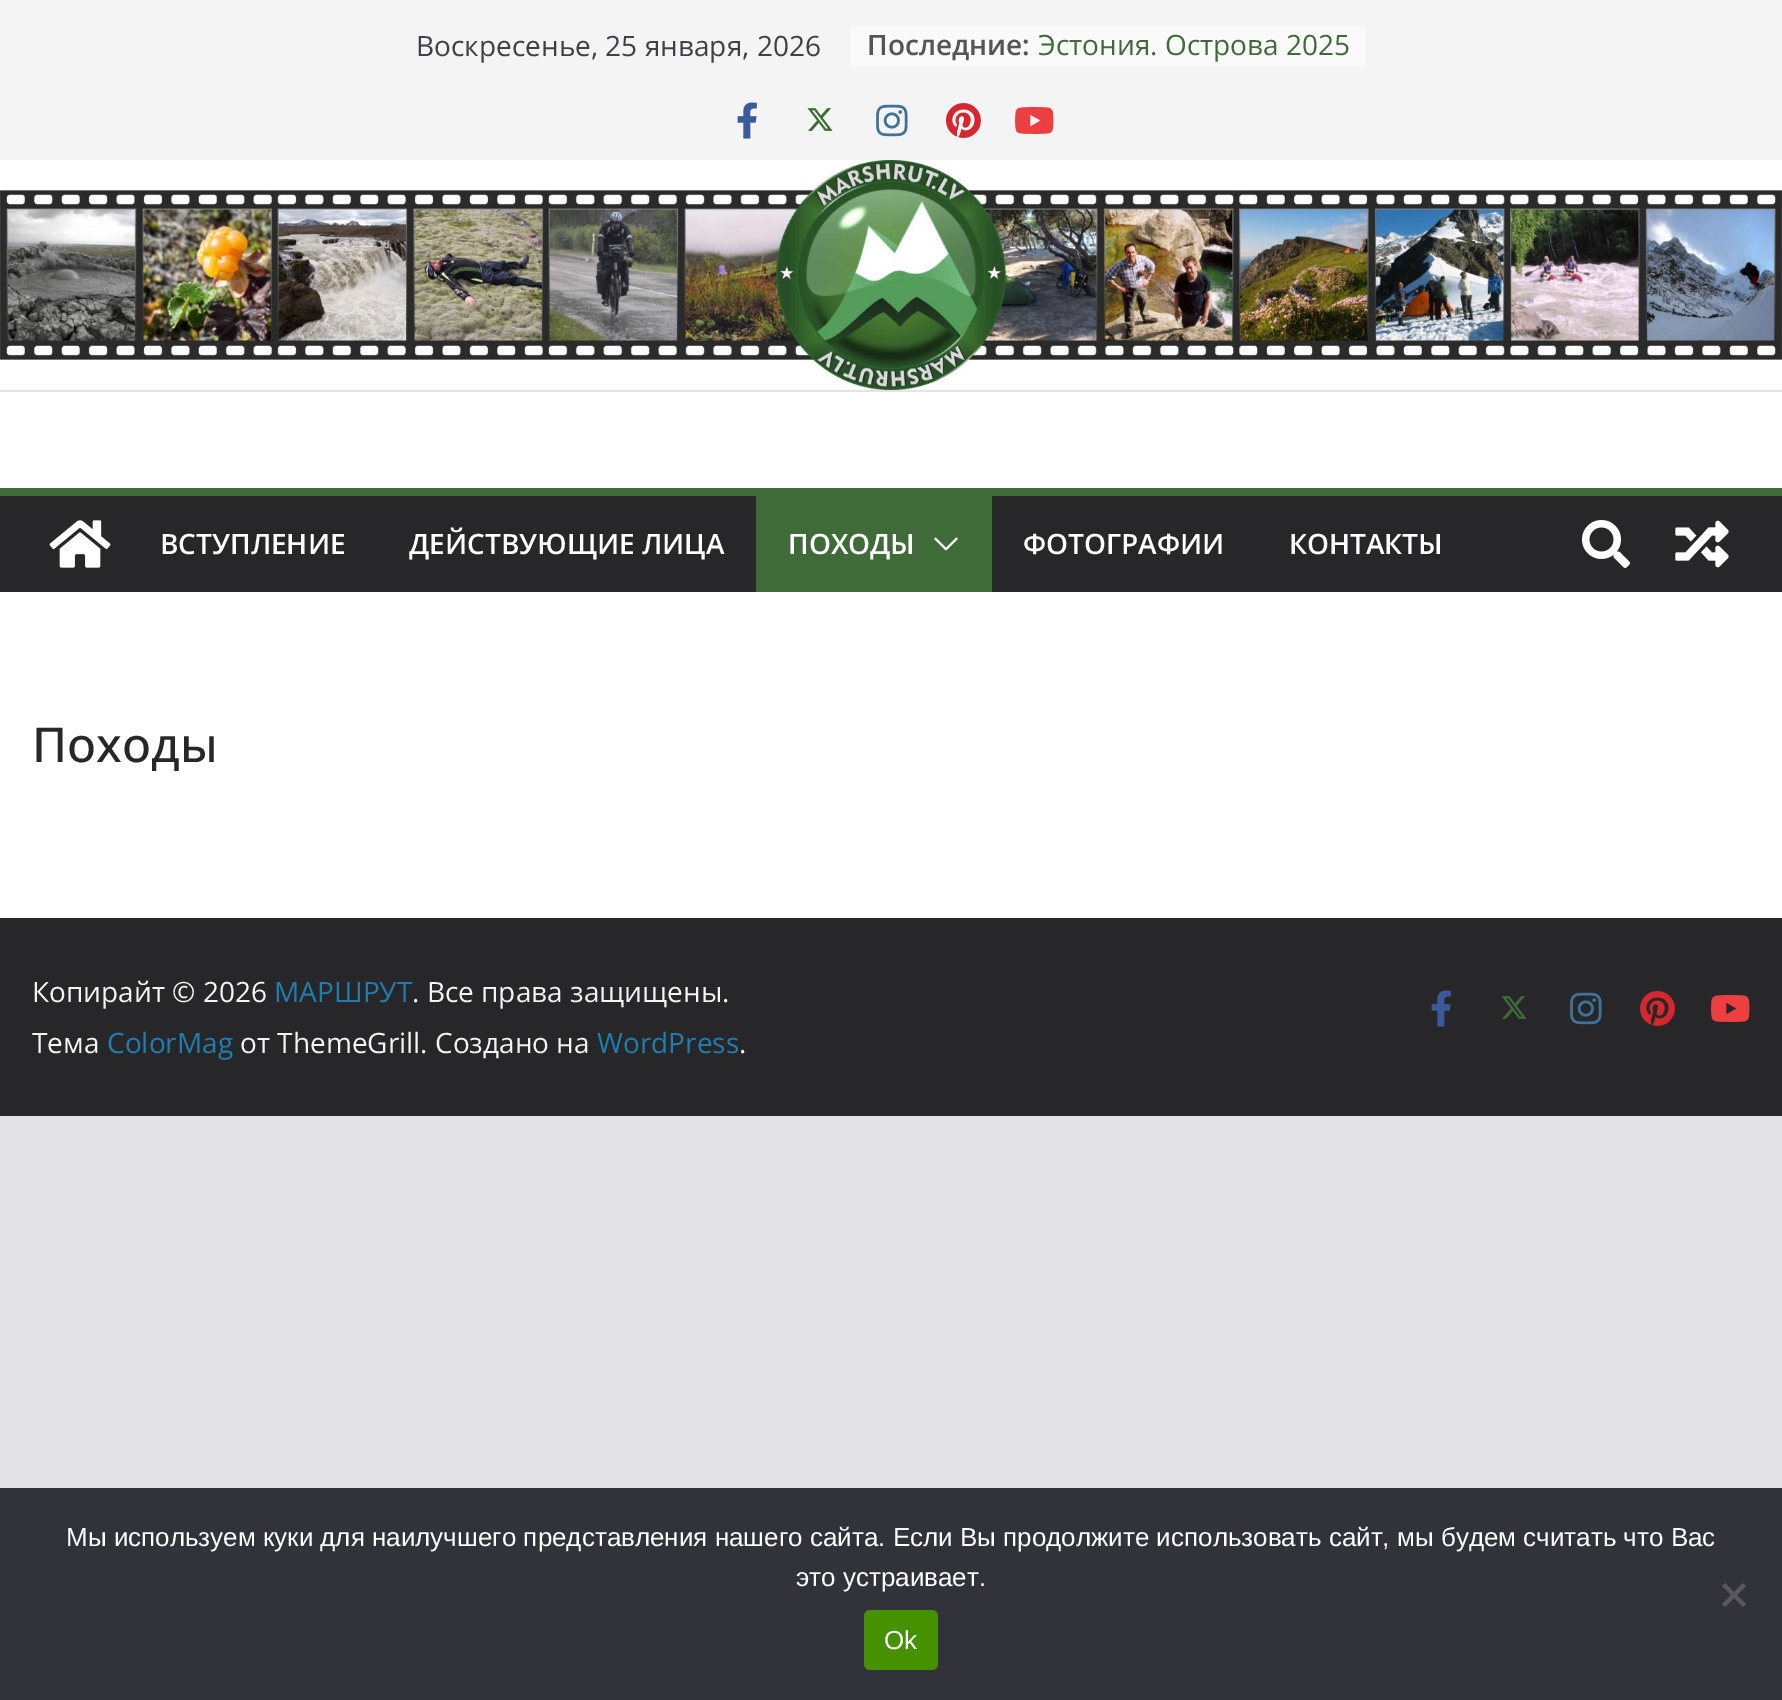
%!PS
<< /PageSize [1782 1700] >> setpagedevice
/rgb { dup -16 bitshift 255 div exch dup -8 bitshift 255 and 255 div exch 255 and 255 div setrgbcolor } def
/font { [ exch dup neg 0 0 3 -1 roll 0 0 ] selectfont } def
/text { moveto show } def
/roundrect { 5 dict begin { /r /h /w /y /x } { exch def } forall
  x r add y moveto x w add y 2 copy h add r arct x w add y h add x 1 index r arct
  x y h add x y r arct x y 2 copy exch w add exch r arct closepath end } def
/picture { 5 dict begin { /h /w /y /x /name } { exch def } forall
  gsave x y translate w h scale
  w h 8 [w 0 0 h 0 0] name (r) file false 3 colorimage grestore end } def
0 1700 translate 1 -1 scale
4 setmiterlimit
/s1 { /OpenSans-Regular 28 font 16#3F3F46 rgb } def
/s2 { /OpenSans-SemiBold 28 font 16#555555 rgb } def
/s3 { /OpenSans-Regular 28 font 16#3F6B39 rgb } def
/s4 { /OpenSans-SemiBold 28 font 16#FFFFFF rgb } def
/s5 { /OpenSans-Medium 48 font 16#27272A rgb } def
/s6 { /OpenSans-Regular 28 font 16#F4F4F5 rgb } def
/s7 { /OpenSans-Regular 28 font 16#207DAF rgb } def
/s8 { /LiberationSans-Regular 26 font 16#FFFFFF rgb } def
16#E4E4E7 rgb
0 0 1782 1700 rectfill
16#FFFFFF rgb
0 392 1782 96 rectfill
16#F4F4F5 rgb
0 0 1782 160 rectfill
s1
(Воскресенье, 25 января, 2026) 416 56 text
16#FAFAFA rgb
850 26 516 40 rectfill
s2
(Последние:) 867 55 text
s3
(Эстония. Острова 2025) 1038 55 text
(pic1.raw) 737 102 20 37 picture
(pic2.raw) 807 108 26 23 picture
(pic3.raw) 876 104 32 33 picture
(pic4.raw) 946 103 35 35 picture
(pic5.raw) 1015 107 39 27 picture
(pic6.raw) 0 160 1782 230 picture
16#27272A rgb
0 496 1782 96 rectfill
16#3F6B39 rgb
0 488 1782 8 rectfill
(pic7.raw) 49 520 62 48 picture
s4
(ВСТУПЛЕНИЕ) 160 554 text
(ДЕЙСТВУЮЩИЕ ЛИЦА) 409 554 text
16#3F6B39 rgb
756 496 236 96 rectfill
s4
(ПОХОДЫ) 788 554 text
(pic8.raw) 934 537 24 14 picture
(ФОТОГРАФИИ) 1023 554 text
(КОНТАКТЫ) 1289 554 text
(pic9.raw) 1582 520 48 48 picture
(pic10.raw) 1675 520 54 48 picture
0 592 1782 326 rectfill
s5
(Походы) 32 762 text
0 918 1782 198 rectfill
s6
(Копирайт © 2026) 32 1002 text
s7
(МАРШРУТ) 274 1002 text
s6
(. Все права защищены.) 412 1002 text
(Тема) 32 1053 text
s7
(ColorMag) 107 1053 text
s6
(от ThemeGrill. Создано на) 240 1053 text
s7
(WordPress) 597 1053 text
s6
(.) 739 1053 text
(pic11.raw) 1431 990 20 37 picture
(pic12.raw) 1501 996 26 23 picture
(pic13.raw) 1570 992 32 33 picture
(pic14.raw) 1640 991 35 35 picture
(pic15.raw) 1711 995 39 27 picture
16#32323A rgb
0 1488 1782 212 rectfill
s8
(Мы используем куки для наилучшего представления нашего сайта. Если Вы продолжите использовать сайт, мы будем считать что Вас) 66 1546 text
(это устраивает.) 796 1586 text
16#59595D rgb
1743 1583 moveto 1746 1586 lineto 1725 1607 lineto 1722 1604 lineto closepath fill
1722 1586 moveto 1725 1583 lineto 1746 1604 lineto 1743 1607 lineto closepath fill
16#469100 rgb
864 1610 74 60 6 roundrect fill
s8
(Ok) 884 1649 text
showpage
